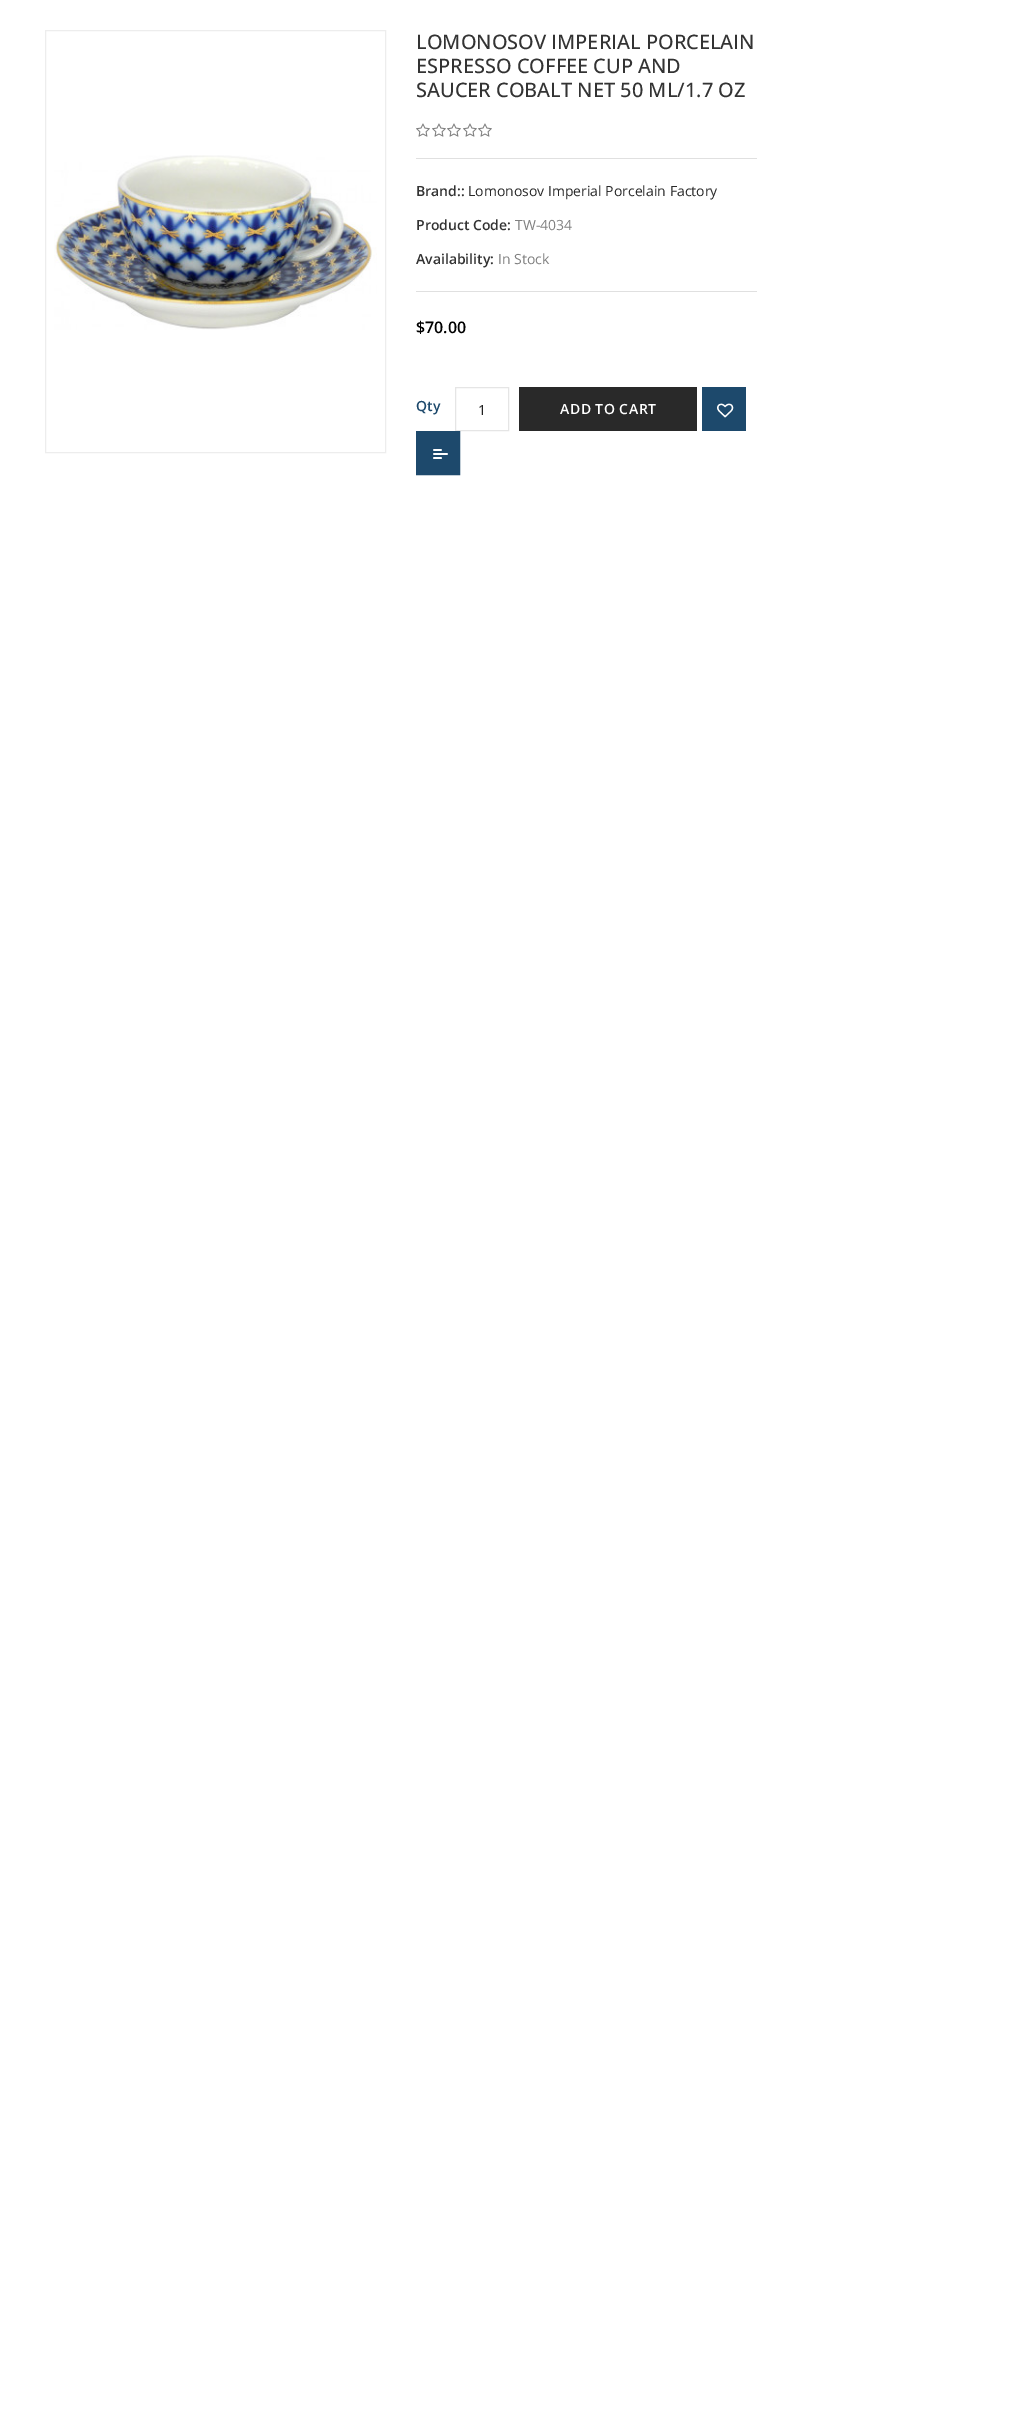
%!PS
<< /PageSize [1019 2433] >> setpagedevice
/rgb { dup -16 bitshift 255 div exch dup -8 bitshift 255 and 255 div exch 255 and 255 div setrgbcolor } def
/font { [ exch dup neg 0 0 3 -1 roll 0 0 ] selectfont } def
/text { moveto show } def
/picture { 5 dict begin { /h /w /y /x /name } { exch def } forall
  gsave x y translate w h scale
  w h 8 [w 0 0 h 0 0] name (r) file false 3 colorimage grestore end } def
0 2433 translate 1 -1 scale
4 setmiterlimit
/s1 { /OpenSans-Medium 20 font 16#333333 rgb } def
/s2 { /OpenSans-SemiBold 14 font 16#333333 rgb } def
/s3 { /OpenSans-Regular 14 font 16#292929 rgb } def
/s4 { /OpenSans-Regular 14 font 16#808080 rgb } def
/s5 { /OpenSans-SemiBold 16 font 16#000000 rgb } def
/s6 { /OpenSans-SemiBold 14 font 16#1D496C rgb } def
/s7 { /OpenSans-Regular 14 font 16#222222 rgb } def
16#FFFFFF rgb
0 0 1019 2433 rectfill
16#EDEDED rgb
45.5 30.5 340 422 rectstroke
(pic1.raw) 54 155 323 175 picture
s1
(LOMONOSOV IMPERIAL PORCELAIN) 416 49 text
(ESPRESSO COFFEE CUP AND) 416 73 text
(SAUCER COBALT NET 50 ML/1.7 OZ) 416 97 text
(pic2.raw) 416 123 14 14 picture
(pic2.raw) 432 123 14 14 picture
(pic2.raw) 447 123 14 14 picture
(pic2.raw) 463 123 14 14 picture
(pic2.raw) 478 123 14 14 picture
16#E0E0E0 rgb
416 158 341 1 rectfill
416 291 341 1 rectfill
s2
(Brand::) 416 196 text
s3
(Lomonosov Imperial Porcelain Factory) 468 196 text
s2
(Product Code:) 416 230 text
s4
(TW-4034) 515 230 text
s2
(Availability:) 416 264 text
s4
(In Stock) 498 264 text
s5
($70.00) 416 333 text
s6
(Qty) 416 411 text
16#E5E5E5 rgb
455.5 387.5 53 43 rectstroke
s7
(1) 478 415 text
16#292929 rgb
519 387 178 44 rectfill
/OpenSans-SemiBold 14 font
16#FFFFFF rgb
560 414 moveto 0.5 0 (ADD TO CART) ashow
16#1D496C rgb
702 387 44 44 rectfill
(pic3.raw) 717 403 17 15 picture
417 432 42 42 rectfill
(pic4.raw) 433 449 15 10 picture
416.5 431.5 43 43 rectstroke
showpage
